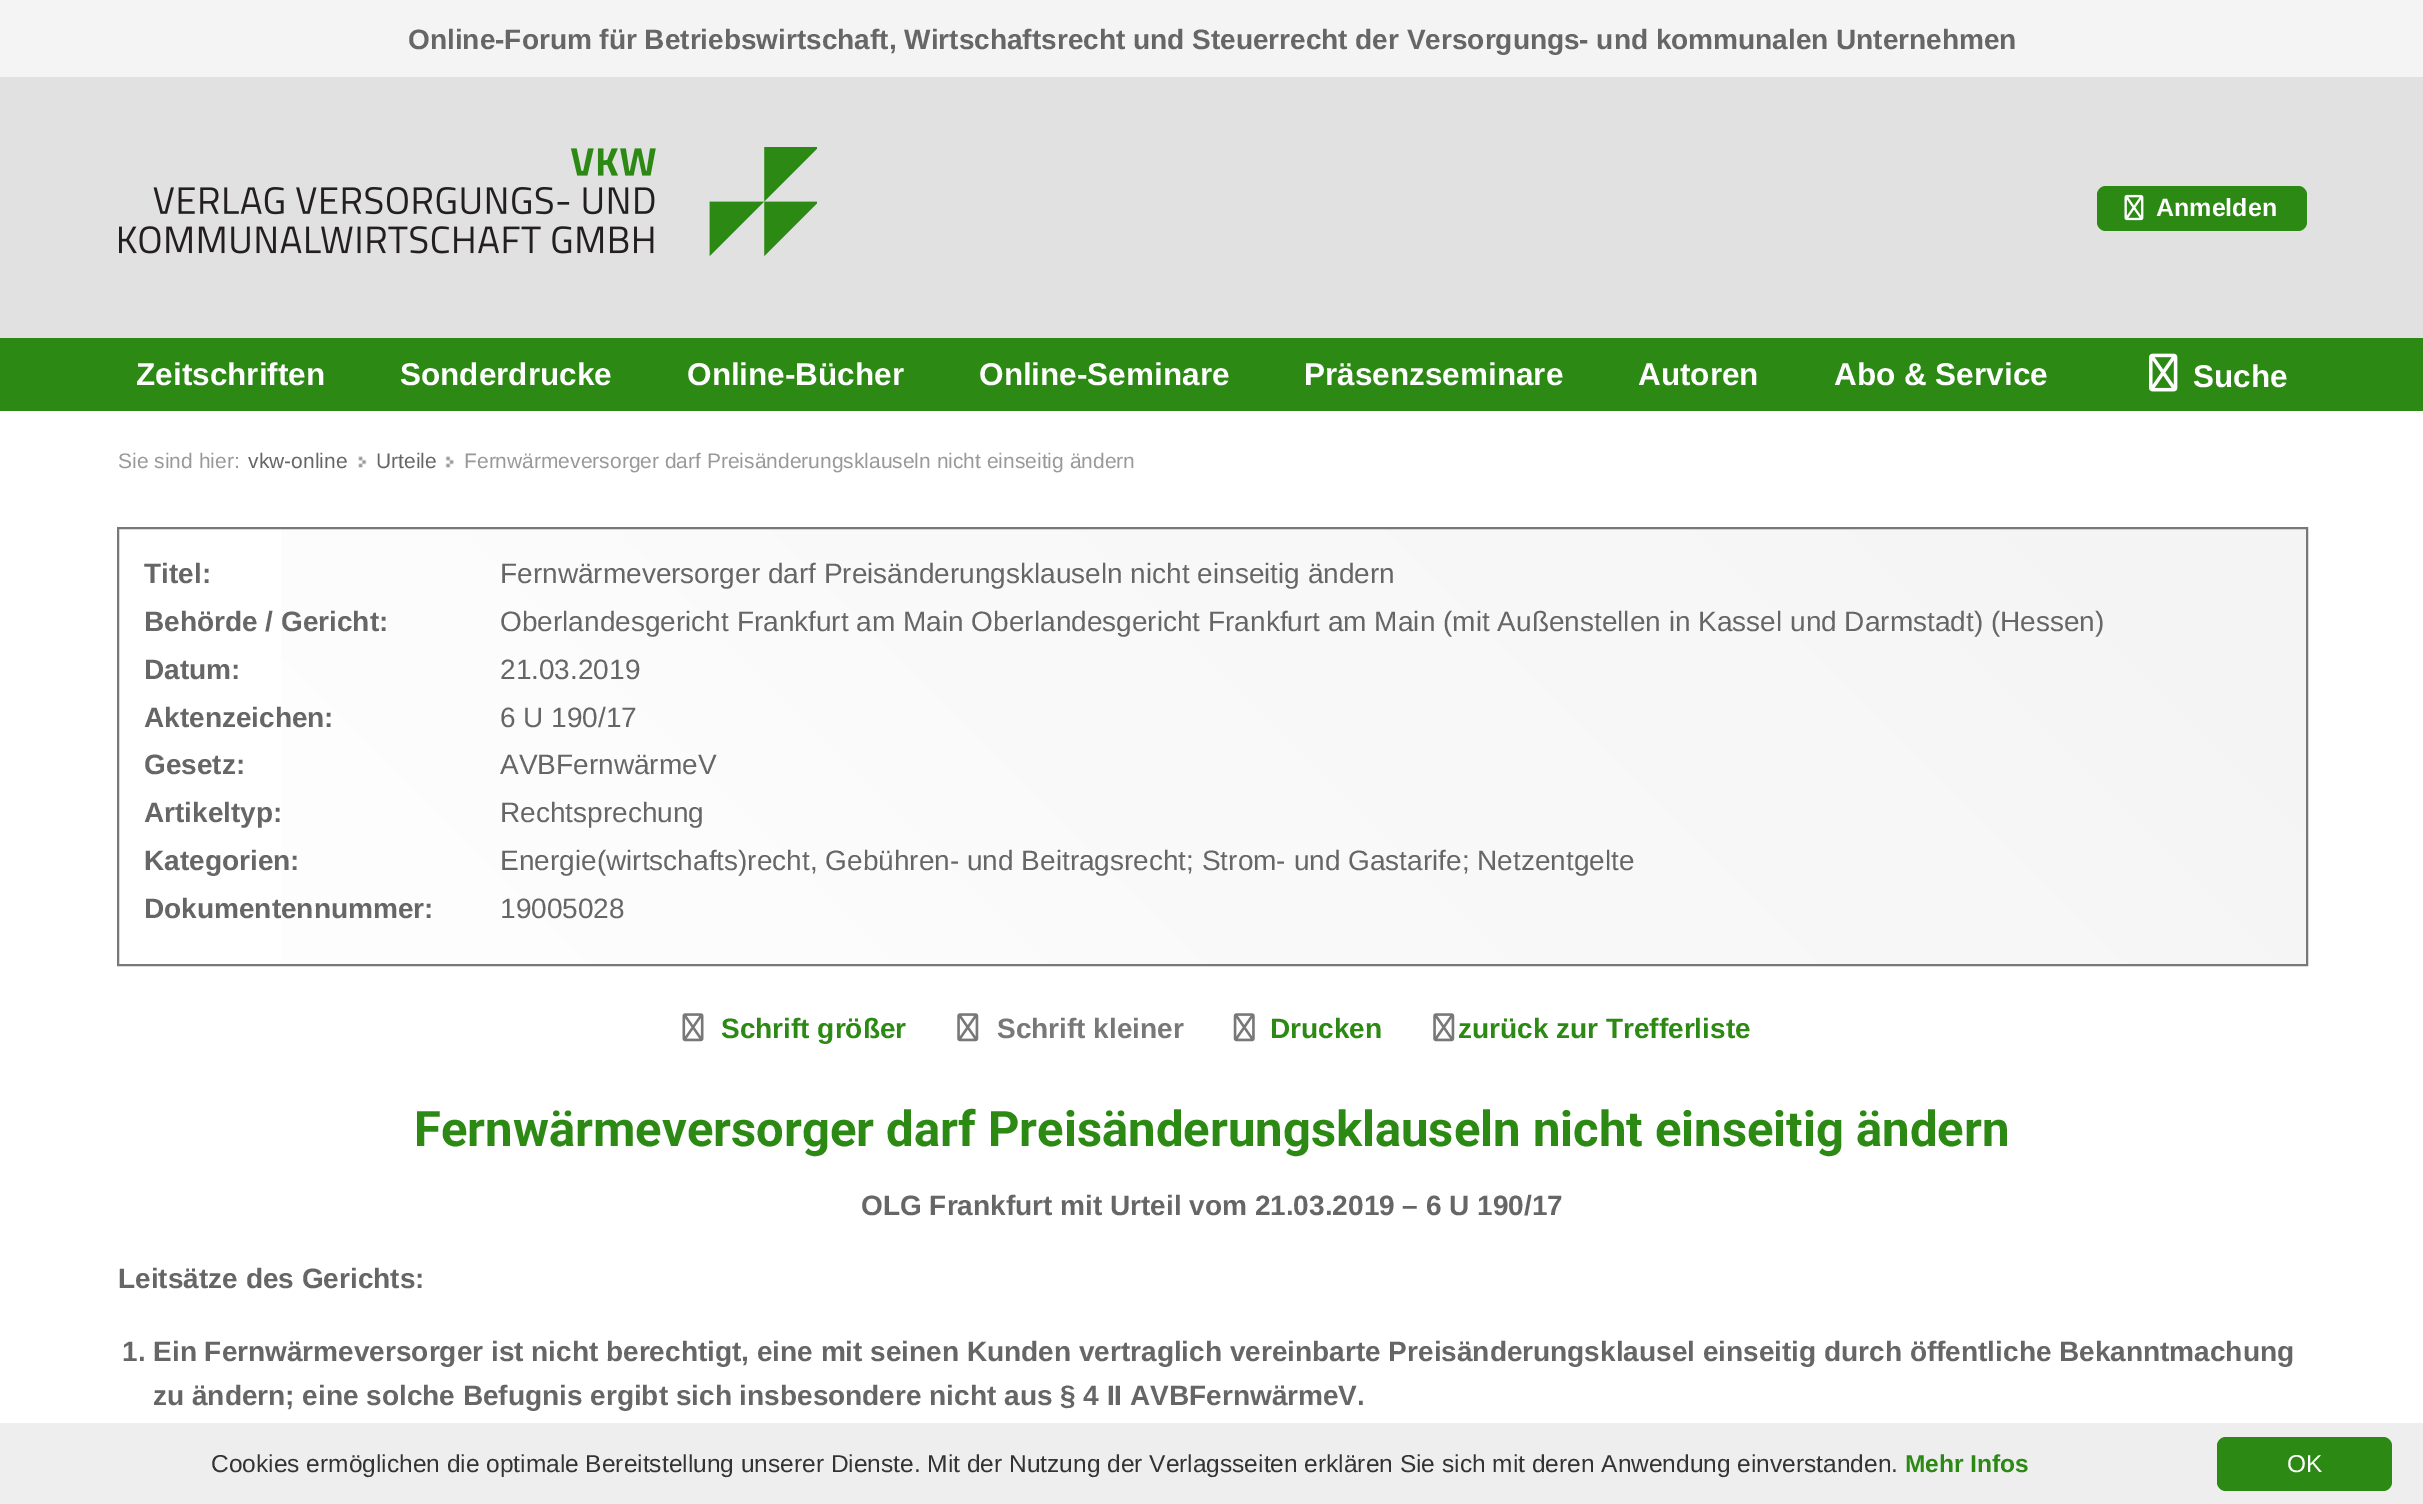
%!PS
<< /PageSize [2423 1504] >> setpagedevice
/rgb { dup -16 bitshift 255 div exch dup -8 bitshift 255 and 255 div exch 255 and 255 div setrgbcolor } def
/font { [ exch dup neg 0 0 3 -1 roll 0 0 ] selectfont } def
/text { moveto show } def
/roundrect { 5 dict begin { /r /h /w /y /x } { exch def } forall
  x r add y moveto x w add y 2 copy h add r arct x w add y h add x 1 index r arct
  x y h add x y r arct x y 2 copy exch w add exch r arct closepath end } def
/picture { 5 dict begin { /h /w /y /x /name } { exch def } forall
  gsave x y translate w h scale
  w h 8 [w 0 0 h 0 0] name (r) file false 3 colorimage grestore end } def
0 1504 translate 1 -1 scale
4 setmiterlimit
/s1 { /LiberationSans-Bold 28 font 16#666666 rgb } def
/s2 { /LiberationSans-Bold 25 font 16#FEFEFE rgb } def
/s3 { /LiberationSans-Bold 31.5 font 16#FEFEFE rgb } def
/s4 { /LiberationSans-Regular 21 font 16#999999 rgb } def
/s5 { /LiberationSans-Regular 21 font 16#666666 rgb } def
/s6 { /LiberationSans-Regular 28 font 16#666666 rgb } def
/s7 { /LiberationSans-Bold 28 font 16#2C8914 rgb } def
/s8 { /LiberationSans-Bold 28 font 16#787878 rgb } def
/s9 { /Roboto-Bold 49 font 16#2C8914 rgb } def
/s10 { /LiberationSans-Regular 24.5 font 16#333333 rgb } def
/s11 { /LiberationSans-Bold 24.5 font 16#2C8914 rgb } def
/s12 { /LiberationSans-Regular 24.5 font 16#FEFEFE rgb } def
16#FFFFFF rgb
0 0 2423 1504 rectfill
16#E1E1E1 rgb
0 77 2423 261 rectfill
16#F4F4F4 rgb
0 0 2423 77 rectfill
s1
(Online-Forum für Betriebswirtschaft, Wirtschaftsrecht und Steuerrecht der Versorgungs- und kommunalen Unternehmen) 408 49 text
(pic1.raw) 119 147 698 110 picture
16#2C8914 rgb
2097 186 210 45 9 roundrect fill
(pic2.raw) 2124 194 20 27 picture
s2
(Anmelden) 2156 216 text
16#2C8914 rgb
0 338 2423 73 rectfill
s3
(Zeitschriften) 136 385 text
(Sonderdrucke) 400 385 text
(Online-Bücher) 687 385 text
(Online-Seminare) 979 385 text
(Präsenzseminare) 1304 385 text
(Autoren) 1638 385 text
(Abo & Service) 1834 385 text
(pic3.raw) 2149 353 29 39 picture
(Suche) 2193 387 text
s4
(Sie sind hier:) 118 468 text
s5
(vkw-online) 248 468 text
(pic4.raw) 358 456 9 12 picture
(Urteile) 376 468 text
(pic5.raw) 445 456 9 12 picture
s4
(Fernwärmeversorger darf Preisänderungsklauseln nicht einseitig ändern) 464 468 text
gsave 281 529 moveto 2306 529 lineto 2306 964 lineto 281 964 lineto closepath clip newpath
<< /ShadingType 2 /ColorSpace /DeviceRGB /Coords [557 1402 1869 91] /Extend [true true] /Function << /FunctionType 2 /Domain [0 1] /C0 [1 1 1] /C1 [0.957 0.957 0.957] /N 1 >> >> shfill grestore
16#787878 rgb
2 setlinewidth
118 528 2189 437 rectstroke
s1
(Titel:) 144 583 text
s6
(Fernwärmeversorger darf Preisänderungsklauseln nicht einseitig ändern) 500 583 text
s1
(Behörde / Gericht:) 144 631 text
s6
(Oberlandesgericht Frankfurt am Main Oberlandesgericht Frankfurt am Main \(mit Außenstellen in Kassel und Darmstadt\) \(Hessen\)) 500 631 text
s1
(Datum:) 144 679 text
s6
(21.03.2019) 500 679 text
s1
(Aktenzeichen:) 144 727 text
s6
(6 U 190/17) 500 727 text
s1
(Gesetz:) 144 774 text
s6
(AVBFernwärmeV) 500 774 text
s1
(Artikeltyp:) 144 822 text
s6
(Rechtsprechung) 500 822 text
s1
(Kategorien:) 144 870 text
s6
(Energie\(wirtschafts\)recht, Gebühren- und Beitragsrecht; Strom- und Gastarife; Netzentgelte) 500 870 text
s1
(Dokumentennummer:) 144 918 text
s6
(19005028) 500 918 text
(pic6.raw) 682 1013 22 29 picture
s7
(Schrift größer) 721 1038 text
(pic7.raw) 957 1013 22 29 picture
s8
(Schrift kleiner) 997 1038 text
(pic8.raw) 1233 1013 22 29 picture
s7
(Drucken) 1270 1038 text
(pic7.raw) 1433 1013 22 29 picture
(zurück zur Trefferliste) 1458 1038 text
s9
(Fernwärmeversorger darf Preisänderungsklauseln nicht einseitig ändern) 414 1146 text
s1
(OLG Frankfurt mit Urteil vom 21.03.2019 – 6 U 190/17) 861 1215 text
(Leitsätze des Gerichts:) 118 1288 text
(1. Ein Fernwärmeversorger ist nicht berechtigt, eine mit seinen Kunden vertraglich vereinbarte Preisänderungsklausel einseitig durch öffentliche Bekanntmachung) 122 1361 text
(zu ändern; eine solche Befugnis ergibt sich insbesondere nicht aus § 4 II AVBFernwärmeV.) 153 1405 text
16#EEEEEE rgb
0 1423 2423 81 rectfill
s10
(Cookies ermöglichen die optimale Bereitstellung unserer Dienste. Mit der Nutzung der Verlagsseiten erklären Sie sich mit deren Anwendung einverstanden.) 211 1472 text
s11
(Mehr Infos) 1905 1472 text
2217 1437 175 54 9 roundrect fill
s12
(OK) 2287 1472 text
showpage
